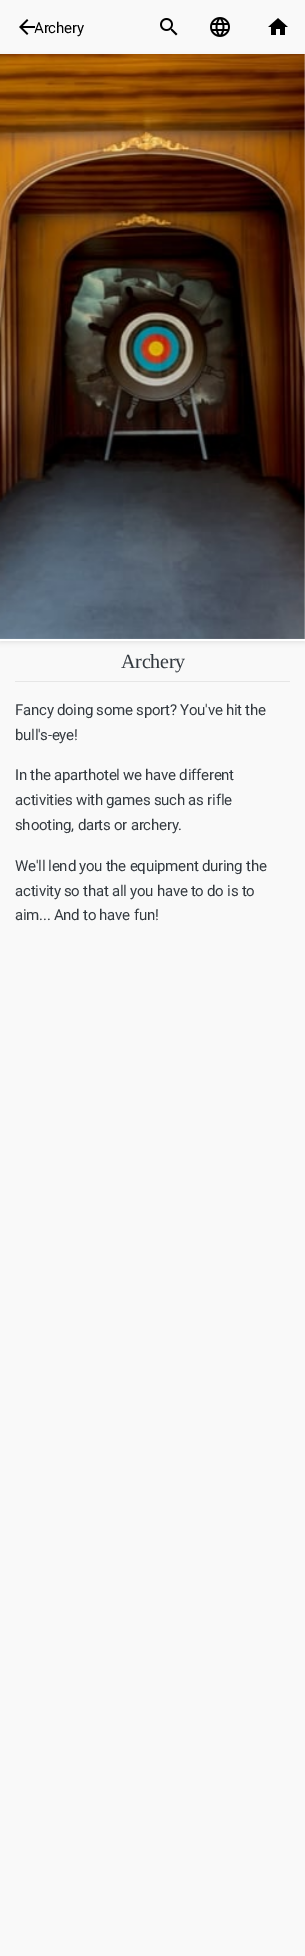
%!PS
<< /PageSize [305 1956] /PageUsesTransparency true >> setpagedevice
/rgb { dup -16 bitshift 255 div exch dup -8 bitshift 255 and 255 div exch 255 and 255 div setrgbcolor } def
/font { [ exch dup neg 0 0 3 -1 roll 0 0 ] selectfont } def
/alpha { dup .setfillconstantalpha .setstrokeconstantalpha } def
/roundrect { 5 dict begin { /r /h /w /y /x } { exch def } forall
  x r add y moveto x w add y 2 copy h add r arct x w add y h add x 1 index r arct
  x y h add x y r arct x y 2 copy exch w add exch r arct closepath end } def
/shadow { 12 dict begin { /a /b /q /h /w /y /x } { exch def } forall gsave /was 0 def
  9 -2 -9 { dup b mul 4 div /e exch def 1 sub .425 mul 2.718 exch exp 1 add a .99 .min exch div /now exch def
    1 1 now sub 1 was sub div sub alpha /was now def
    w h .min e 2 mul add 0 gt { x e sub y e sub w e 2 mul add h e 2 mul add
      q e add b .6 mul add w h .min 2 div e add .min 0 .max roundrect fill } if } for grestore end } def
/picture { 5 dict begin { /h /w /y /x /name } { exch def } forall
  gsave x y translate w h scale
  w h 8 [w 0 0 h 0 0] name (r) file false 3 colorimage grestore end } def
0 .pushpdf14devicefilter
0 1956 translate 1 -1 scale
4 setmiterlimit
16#F9F9F9 rgb
0 0 305 1956 rectfill
/Roboto-Regular 15 font
16#000000 rgb
34 33 moveto -0.25 0 (Archery) ashow
(pic1.raw) 19 19 16 16 picture
(pic2.raw) 160 18 18 18 picture
(pic3.raw) 210 17 20 20 picture
(pic4.raw) 268 18 20 17 picture
0 56 305 587 0 2 0.07 shadow
(pic5.raw) 0 54 305 585 picture
16#FFFFFF rgb
0 639 305 2 rectfill
16#E6E6E6 rgb
15 681 275 1 rectfill
/LiberationSerif-Regular 20 font
16#343A40 rgb
121 668 moveto -0.25 0 (Archery) ashow
/Roboto-Regular 15 font
15 715 moveto -0.25 0 (Fancy doing some sport? You've hit the) ashow
15 740 moveto -0.25 0 (bull's-eye!) ashow
15 780 moveto -0.25 0 (In the aparthotel we have different) ashow
15 805 moveto -0.25 0 (activities with games such as rifle) ashow
15 830 moveto -0.25 0 (shooting, darts or archery.) ashow
15 871 moveto -0.25 0 (We'll lend you the equipment during the) ashow
15 896 moveto -0.25 0 (activity so that all you have to do is to) ashow
15 920 moveto -0.25 0 (aim... And to have fun!) ashow
.poppdf14devicefilter showpage
